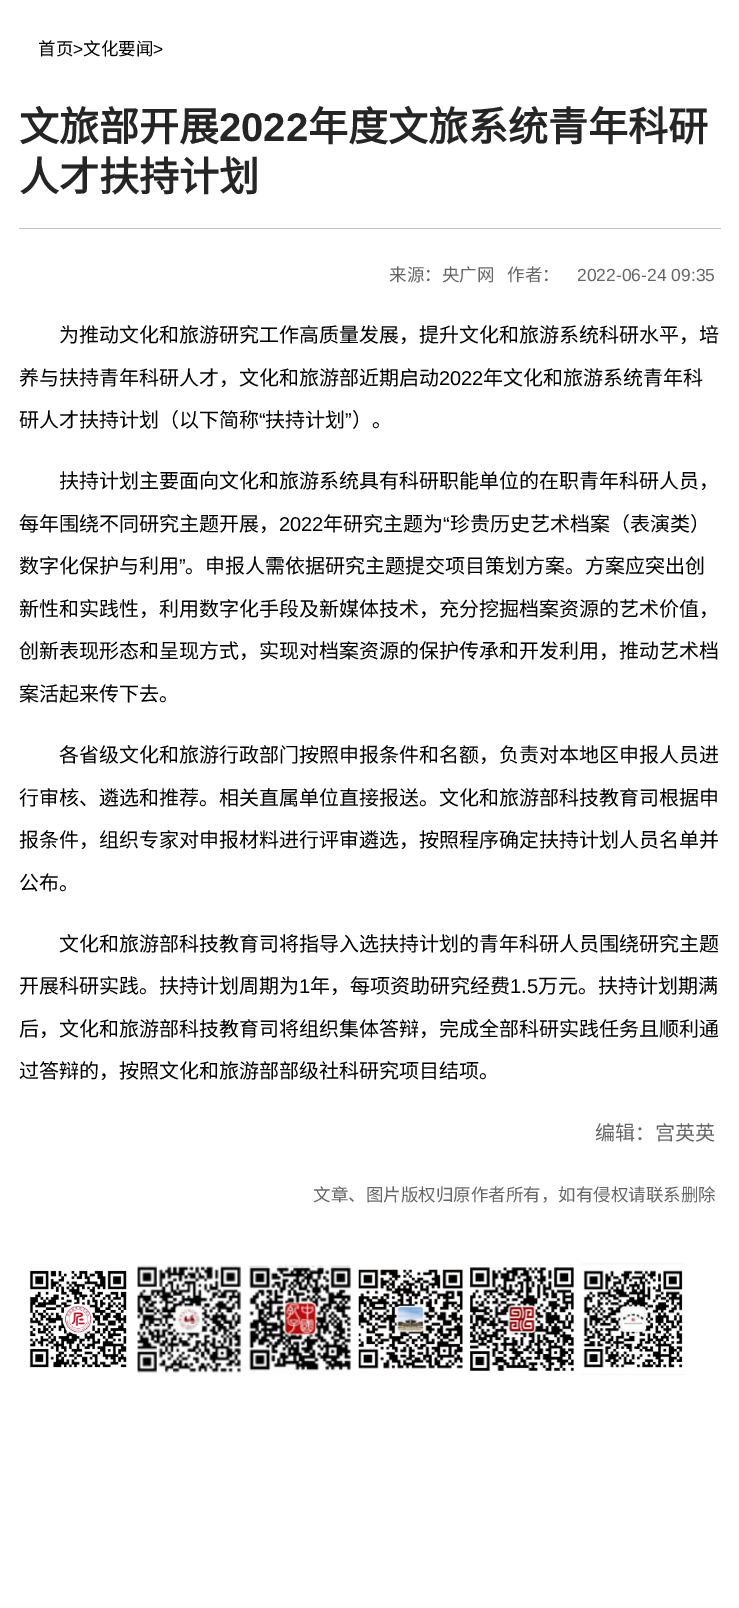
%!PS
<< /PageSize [739 1608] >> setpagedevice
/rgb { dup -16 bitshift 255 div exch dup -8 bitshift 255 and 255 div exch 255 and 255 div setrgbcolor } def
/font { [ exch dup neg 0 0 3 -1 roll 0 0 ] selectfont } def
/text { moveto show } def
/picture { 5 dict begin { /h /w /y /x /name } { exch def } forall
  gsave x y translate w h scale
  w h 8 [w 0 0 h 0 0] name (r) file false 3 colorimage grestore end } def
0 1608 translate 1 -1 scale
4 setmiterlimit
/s1 { /NotoSansCJKSC-Regular 17.5 font 16#000000 rgb } def
/s2 { /LiberationSans-Regular 17.5 font 16#000000 rgb } def
/s3 { /NotoSansCJKSC-Bold 40 font 16#252525 rgb } def
/s4 { /LiberationSans-Bold 40 font 16#252525 rgb } def
/s5 { /NotoSansCJKSC-Regular 17.5 font 16#666666 rgb } def
/s6 { /LiberationSans-Regular 17.5 font 16#666666 rgb } def
/s7 { /NotoSansCJKSC-Regular 20 font 16#000000 rgb } def
/s8 { /LiberationSans-Regular 20 font 16#000000 rgb } def
/s9 { /NotoSansCJKSC-Regular 20 font 16#666666 rgb } def
16#FFFFFF rgb
0 0 739 1608 rectfill
s1
(首页) 38 55 text
s2
(>) 73 55 text
s1
(文化要闻) 83 55 text
s2
(>) 153 55 text
16#C3C3C3 rgb
19 228 702 1 rectfill
s3
(文旅部开展) 19 141 text
s4
(2022) 219 141 text
s3
(年度文旅系统青年科研) 308 141 text
(人才扶持计划) 19 191 text
s5
(来源：央广网) 389 281 text
(作者：) 507 281 text
s6
(2022-06-24 09:35) 577 281 text
s7
(为推动文化和旅游研究工作高质量发展，提升文化和旅游系统科研水平，培) 59 342 text
(养与扶持青年科研人才，文化和旅游部近期启动) 19 385 text
s8
(2022) 439 385 text
s7
(年文化和旅游系统青年科) 483 385 text
(研人才扶持计划（以下简称) 19 427 text
s8
(“) 259 427 text
s7
(扶持计划) 265 427 text
s8
(”) 345 427 text
s7
(）。) 352 427 text
(扶持计划主要面向文化和旅游系统具有科研职能单位的在职青年科研人员，) 59 488 text
(每年围绕不同研究主题开展，) 19 531 text
s8
(2022) 279 531 text
s7
(年研究主题为) 323 531 text
s8
(“) 443 531 text
s7
(珍贵历史艺术档案（表演类）) 450 531 text
(数字化保护与利用) 19 573 text
s8
(”) 179 573 text
s7
(。申报人需依据研究主题提交项目策划方案。方案应突出创) 185 573 text
(新性和实践性，利用数字化手段及新媒体技术，充分挖掘档案资源的艺术价值，) 19 616 text
(创新表现形态和呈现方式，实现对档案资源的保护传承和开发利用，推动艺术档) 19 658 text
(案活起来传下去。) 19 701 text
(各省级文化和旅游行政部门按照申报条件和名额，负责对本地区申报人员进) 59 762 text
(行审核、遴选和推荐。相关直属单位直接报送。文化和旅游部科技教育司根据申) 19 805 text
(报条件，组织专家对申报材料进行评审遴选，按照程序确定扶持计划人员名单并) 19 847 text
(公布。) 19 890 text
(文化和旅游部科技教育司将指导入选扶持计划的青年科研人员围绕研究主题) 59 951 text
(开展科研实践。扶持计划周期为) 19 993 text
s8
(1) 299 993 text
s7
(年，每项资助研究经费) 310 993 text
s8
(1.5) 510 993 text
s7
(万元。扶持计划期满) 538 993 text
(后，文化和旅游部科技教育司将组织集体答辩，完成全部科研实践任务且顺利通) 19 1036 text
(过答辩的，按照文化和旅游部部级社科研究项目结项。) 19 1078 text
s9
(编辑：宫英英) 595 1140 text
s5
(文章、图片版权归原作者所有，如有侵权请联系删除) 313 1201 text
(pic1.raw) 29 1270 98 98 picture
(pic2.raw) 137 1265 105 110 picture
(pic3.raw) 248 1265 104 110 picture
(pic4.raw) 358 1269 105 100 picture
(pic5.raw) 470 1267 104 105 picture
(pic6.raw) 581 1263 104 112 picture
showpage
